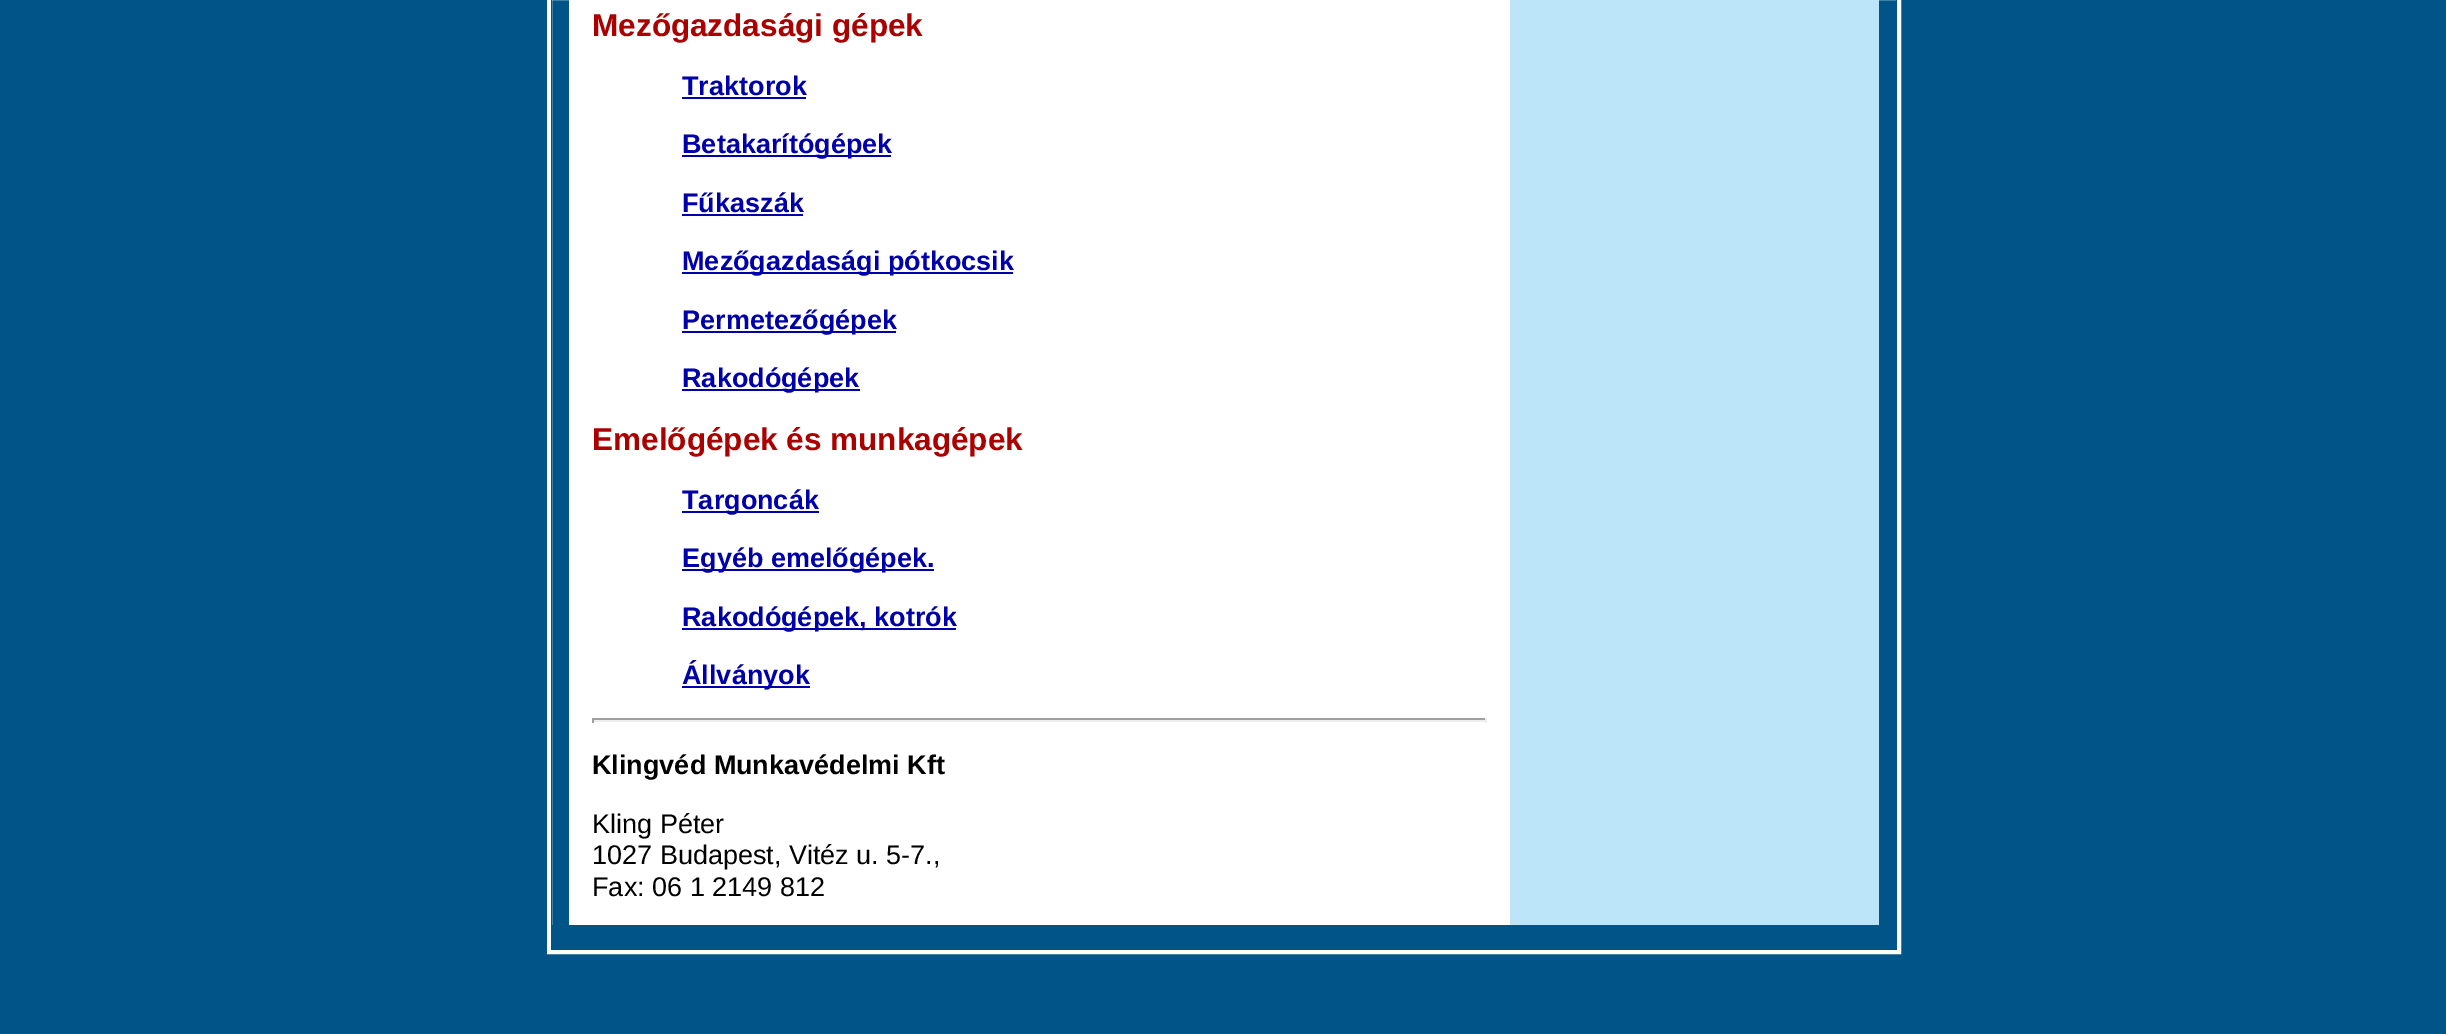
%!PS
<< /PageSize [2446 1034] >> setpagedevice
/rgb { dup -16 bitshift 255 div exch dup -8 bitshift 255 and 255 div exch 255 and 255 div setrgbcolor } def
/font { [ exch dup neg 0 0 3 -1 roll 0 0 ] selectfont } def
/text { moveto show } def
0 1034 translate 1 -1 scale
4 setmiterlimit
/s1 { /LiberationSans-Bold 31.5 font 16#AA0000 rgb } def
/s2 { /LiberationSans-Bold 27 font 16#0000AA rgb } def
/s3 { /LiberationSans-Bold 27 font 16#000000 rgb } def
/s4 { /LiberationSans-Regular 27 font 16#000000 rgb } def
16#015488 rgb
0 0 2446 1034 rectfill
16#FFFFFF rgb
5 setlinewidth
549.5 -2.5 1349 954 rectstroke
16#015488 rgb
551 0 1 925 rectfill
16#FFFFFF rgb
569 0 941 925 rectfill
s1
(Mezőgazdasági gépek) 592 36 text
s2
(Traktorok) 682 95 text
682 97 124 2 rectfill
682 155 209 2 rectfill
(Betakarítógépek) 682 153 text
(Fűkaszák) 682 212 text
682 214 121 2 rectfill
682 272 331 2 rectfill
(Mezőgazdasági pótkocsik) 682 270 text
682 331 214 2 rectfill
(Permetezőgépek) 682 329 text
682 389 178 2 rectfill
(Rakodógépek) 682 387 text
s1
(Emelőgépek és munkagépek) 592 450 text
16#0000AA rgb
682 511 137 2 rectfill
s2
(Targoncák) 682 509 text
682 569 252 2 rectfill
(Egyéb emelőgépek.) 682 567 text
682 628 274 2 rectfill
(Rakodógépek, kotrók) 682 626 text
682 686 128 2 rectfill
(Állványok) 682 684 text
16#9F9F9F rgb
592 718 895 2 rectfill
16#EEEEEE rgb
1485 718 2 5 rectfill
592 720 895 2 rectfill
16#9F9F9F rgb
592 718 2 5 rectfill
s3
(Klingvéd Munkavédelmi Kft) 592 774 text
s4
(Kling Péter) 592 833 text
(1027 Budapest, Vitéz u. 5-7.,) 592 864 text
(Fax: 06 1 2149 812) 592 896 text
16#BCE5F9 rgb
1510 0 369 925 rectfill
16#015488 rgb
1896 0 1 925 rectfill
551 925 18 25 rectfill
569 949 1310 1 rectfill
1879 925 18 25 rectfill
showpage
